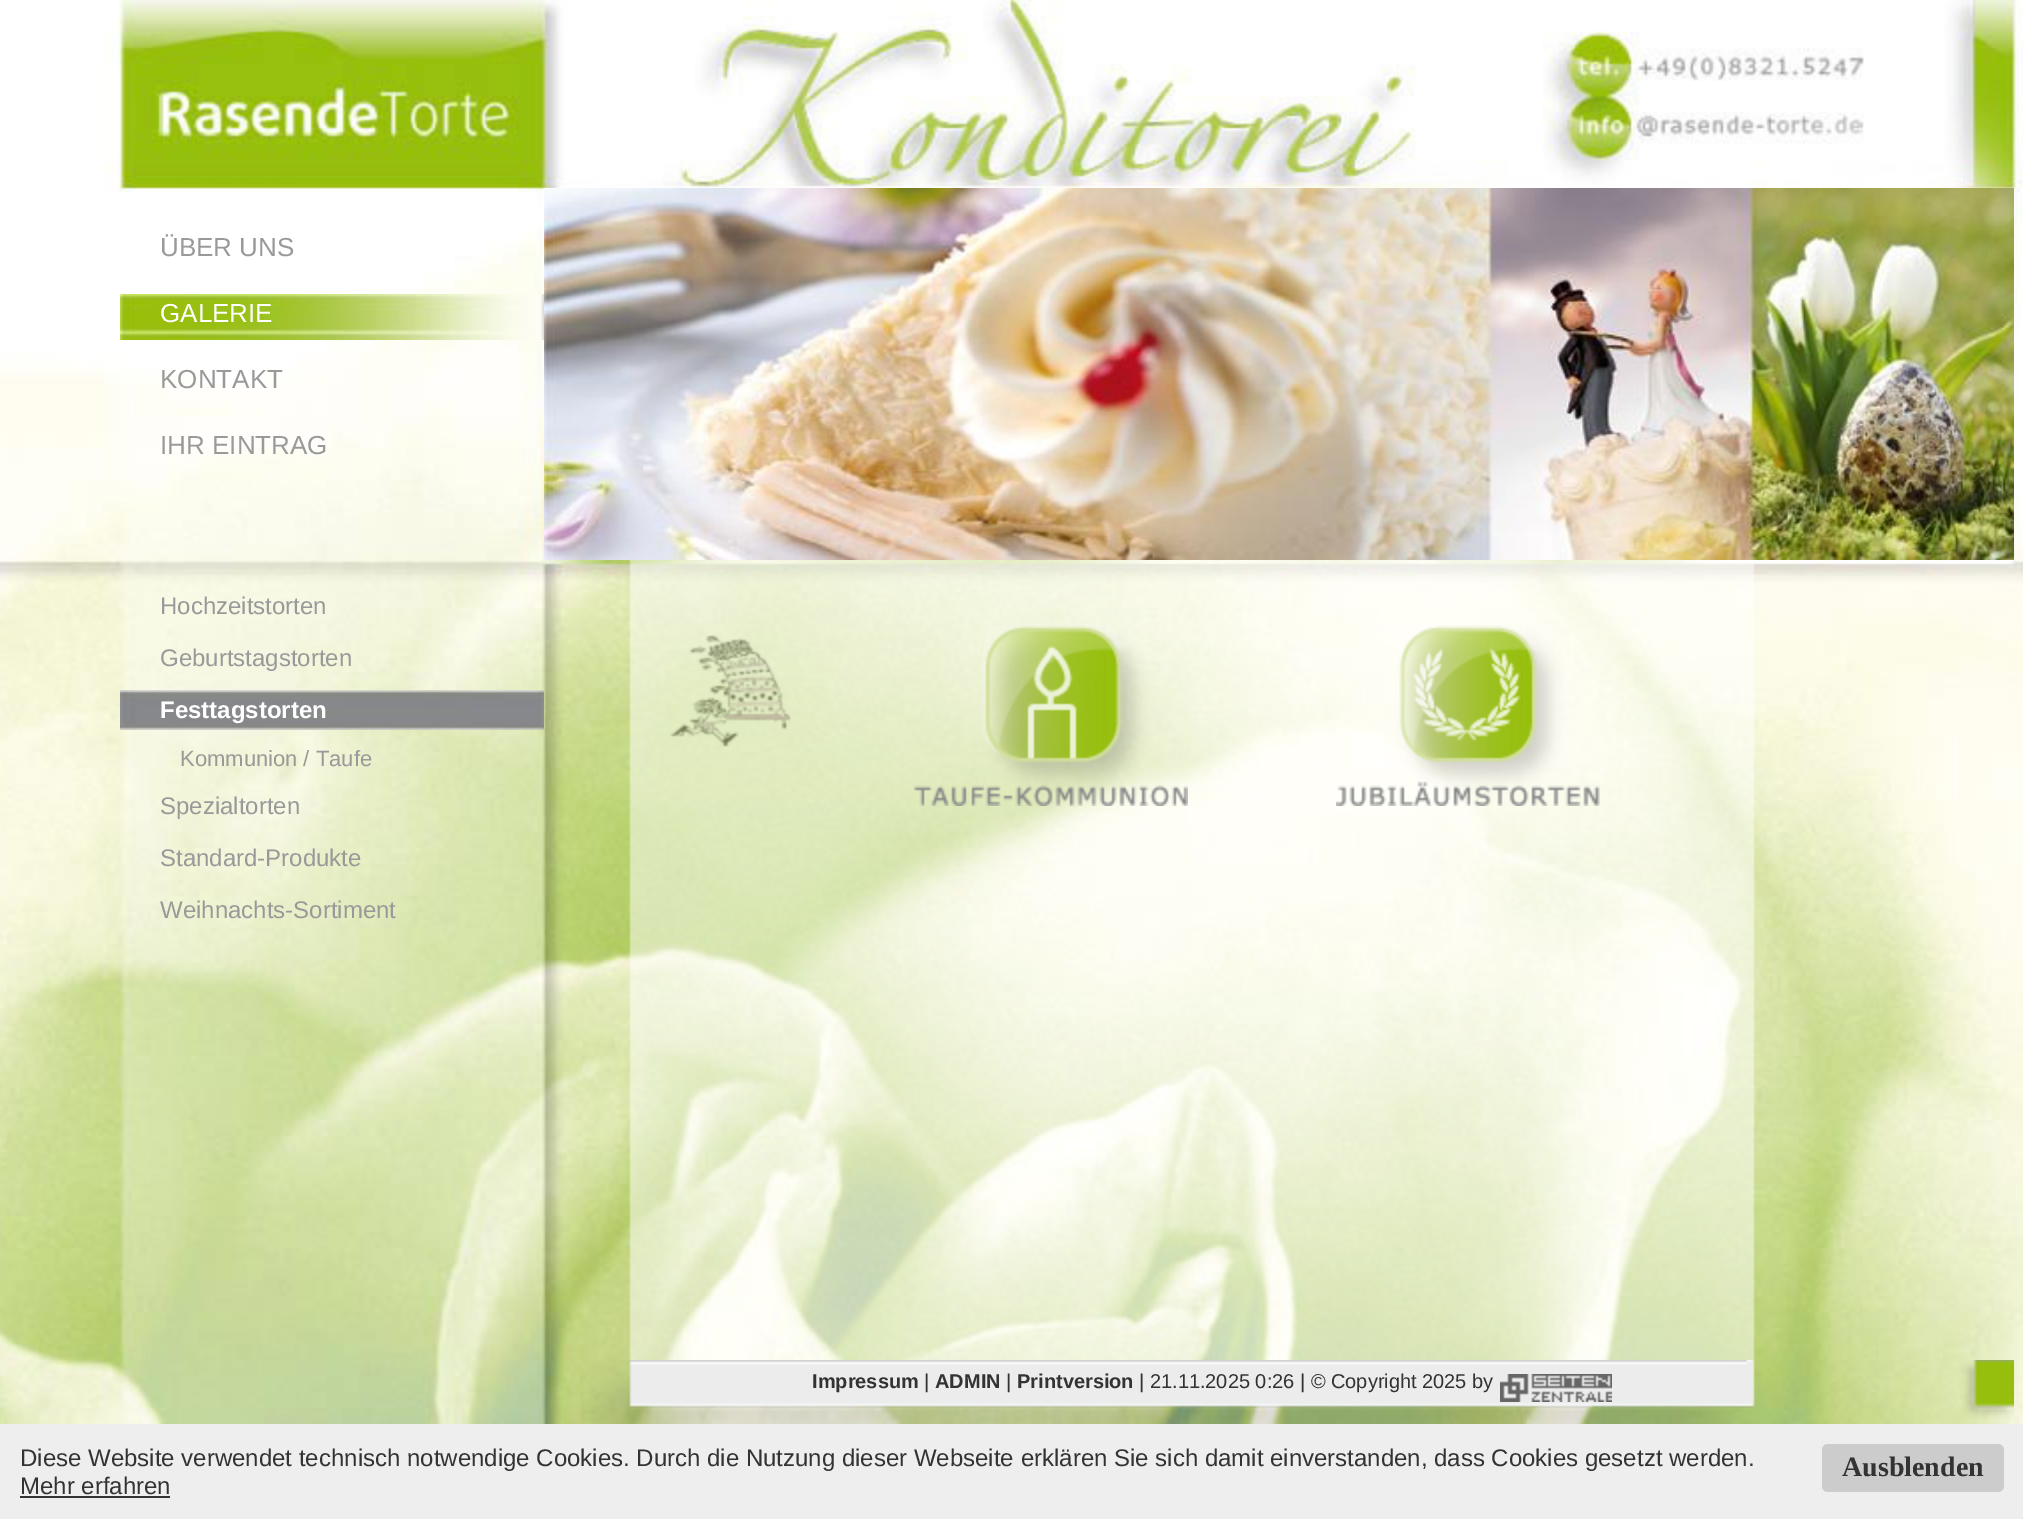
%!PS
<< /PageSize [2023 1519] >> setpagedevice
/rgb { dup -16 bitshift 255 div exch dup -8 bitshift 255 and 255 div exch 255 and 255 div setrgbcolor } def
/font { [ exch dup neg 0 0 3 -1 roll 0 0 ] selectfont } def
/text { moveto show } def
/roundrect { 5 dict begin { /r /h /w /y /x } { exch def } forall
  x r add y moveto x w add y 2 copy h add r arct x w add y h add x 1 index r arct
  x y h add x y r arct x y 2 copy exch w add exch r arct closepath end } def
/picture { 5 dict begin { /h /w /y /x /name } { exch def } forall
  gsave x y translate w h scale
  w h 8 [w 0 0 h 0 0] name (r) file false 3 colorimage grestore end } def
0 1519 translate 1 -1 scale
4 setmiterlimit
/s1 { /LiberationSans-Regular 26 font 16#999999 rgb } def
/s2 { /LiberationSans-Regular 26 font 16#FFFFFF rgb } def
/s3 { /LiberationSans-Regular 24 font 16#999999 rgb } def
/s4 { /LiberationSans-Bold 24 font 16#FFFFFF rgb } def
/s5 { /LiberationSans-Regular 22 font 16#999999 rgb } def
/s6 { /LiberationSans-Bold 20 font 16#333333 rgb } def
/s7 { /LiberationSans-Regular 20 font 16#333333 rgb } def
/s8 { /LiberationSans-Regular 24 font 16#333333 rgb } def
/s9 { /LiberationSerif-Bold 28 font 16#333333 rgb } def
16#FFFFFF rgb
0 0 2023 1519 rectfill
(pic1.raw) 0 0 2023 1424 picture
s1
(ÜBER UNS) 160 256 text
(pic2.raw) 120 294 424 46 picture
s2
(GALERIE) 160 322 text
s1
(KONTAKT) 160 388 text
(IHR EINTRAG) 160 454 text
(pic3.raw) 544 188 1470 372 picture
s3
(Hochzeitstorten) 160 614 text
(Geburtstagstorten) 160 666 text
(pic4.raw) 120 690 424 40 picture
s4
(Festtagstorten) 160 718 text
s5
(Kommunion / Taufe) 180 766 text
s3
(Spezialtorten) 160 814 text
(Standard-Produkte) 160 866 text
(Weihnachts-Sortiment) 160 918 text
(pic5.raw) 629 560 1126 800 picture
(pic6.raw) 914 623 274 183 picture
(pic7.raw) 1336 625 264 181 picture
(pic8.raw) 581 1360 1433 64 picture
s6
(Impressum) 812 1388 text
s7
(|) 924 1388 text
s6
(ADMIN) 935 1388 text
s7
(|) 1006 1388 text
s6
(Printversion) 1017 1388 text
s7
(| 21.11.2025 0:26 | © Copyright 2025 by) 1139 1388 text
(pic9.raw) 1500 1374 112 28 picture
16#EEEEEE rgb
0 1424 2023 95 rectfill
s8
(Diese Website verwendet technisch notwendige Cookies. Durch die Nutzung dieser Webseite erklären Sie sich damit einverstanden, dass Cookies gesetzt werden.) 20 1466 text
(Mehr erfahren) 20 1494 text
20 1496 150 2 rectfill
16#CCCCCC rgb
1822 1444 182 48 6 roundrect fill
s9
(Ausblenden) 1842 1476 text
showpage
